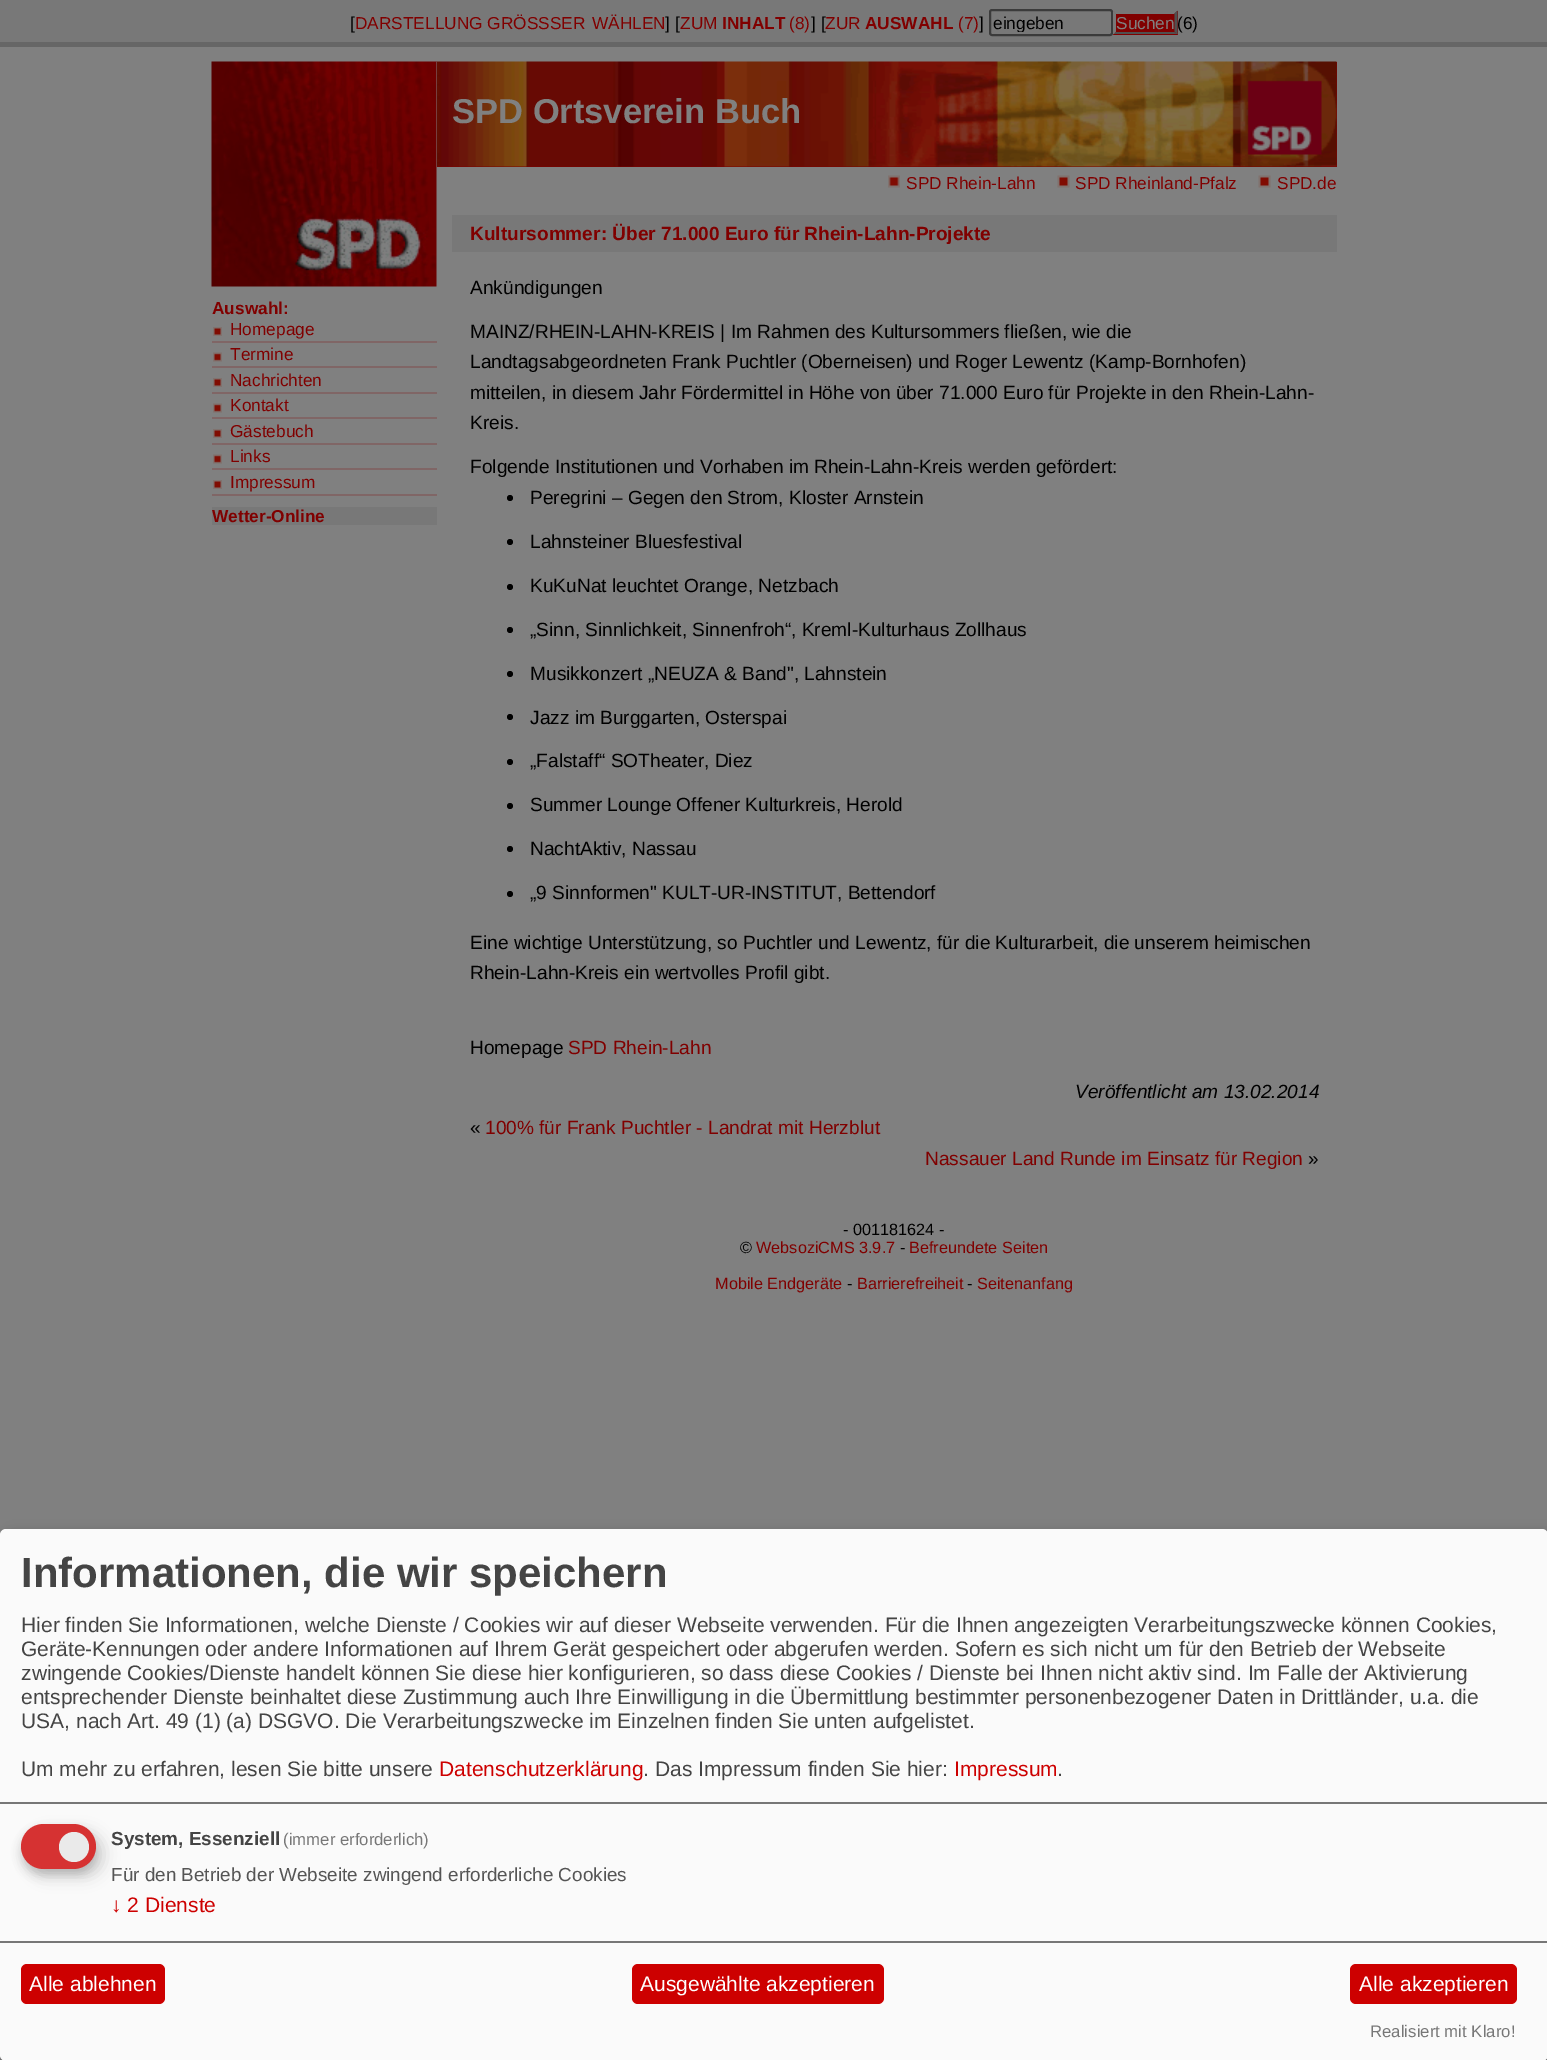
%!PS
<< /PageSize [1547 2060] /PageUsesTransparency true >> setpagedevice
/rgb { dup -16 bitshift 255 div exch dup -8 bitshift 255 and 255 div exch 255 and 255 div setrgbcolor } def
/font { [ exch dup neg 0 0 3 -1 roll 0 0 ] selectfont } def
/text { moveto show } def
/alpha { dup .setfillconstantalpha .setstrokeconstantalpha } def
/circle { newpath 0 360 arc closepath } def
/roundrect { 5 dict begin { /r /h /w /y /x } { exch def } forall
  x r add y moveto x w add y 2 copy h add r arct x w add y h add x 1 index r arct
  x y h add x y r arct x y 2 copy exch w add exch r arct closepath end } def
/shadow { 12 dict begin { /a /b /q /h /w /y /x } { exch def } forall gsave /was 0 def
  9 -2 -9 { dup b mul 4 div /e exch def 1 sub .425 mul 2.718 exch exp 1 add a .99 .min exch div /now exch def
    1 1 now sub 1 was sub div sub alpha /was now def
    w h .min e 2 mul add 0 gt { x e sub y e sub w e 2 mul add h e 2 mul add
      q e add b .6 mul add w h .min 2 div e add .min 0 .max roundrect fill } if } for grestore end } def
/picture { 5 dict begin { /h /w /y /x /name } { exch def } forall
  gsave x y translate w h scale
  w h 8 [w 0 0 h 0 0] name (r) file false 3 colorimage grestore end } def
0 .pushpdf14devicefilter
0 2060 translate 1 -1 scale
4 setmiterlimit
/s1 { /LiberationSans-Regular 17.25 font 16#000000 rgb } def
/s2 { /LiberationSans-Regular 17.25 font 16#800000 rgb } def
/s3 { /LiberationSans-Bold 17.25 font 16#800000 rgb } def
/s4 { /LiberationSans-Regular 17.25 font 16#808080 rgb } def
/s5 { /LiberationSans-Bold 34.5 font 16#808080 rgb } def
/s6 { /LiberationSans-Bold 19.1 font 16#800000 rgb } def
/s7 { /LiberationSans-Regular 19.1 font 16#000000 rgb } def
/s8 { /LiberationSans-Regular 19.1 font 16#800000 rgb } def
/s9 { /LiberationSans-Italic 19.1 font 16#000000 rgb } def
/s10 { /LiberationSans-Regular 16.25 font 16#000000 rgb } def
/s11 { /LiberationSans-Regular 16.25 font 16#800000 rgb } def
/s12 { /LiberationSans-Bold 42 font 16#444444 rgb } def
/s13 { /LiberationSans-Regular 21 font 16#444444 rgb } def
/s14 { /LiberationSans-Regular 21 font 16#CD0000 rgb } def
/s15 { /LiberationSans-Bold 18.9 font 16#444444 rgb } def
/s16 { /LiberationSans-Regular 16.75 font 16#777777 rgb } def
/s17 { /LiberationSans-Regular 18.9 font 16#555555 rgb } def
/s18 { /LiberationSans-Regular 21 font 16#FFFFFF rgb } def
16#808080 rgb
0 0 1547 2060 rectfill
16#787878 rgb
0 0 1547 42 rectfill
16#666666 rgb
0 42 1547 5 rectfill
s1
([) 350 29 text
s2
(DARSTELLUNG GRÖSSSER) 355 29 text
(WÄHLEN) 592 29 text
s1
(] [) 665 29 text
s2
(ZUM) 680 29 text
s3
(INHALT) 722 29 text
s2
(\(8\)) 789 29 text
s1
(] [) 811 29 text
s2
(ZUR) 825 29 text
s3
(AUSWAHL) 865 29 text
s2
(\(7\)) 958 29 text
s1
(]) 979 29 text
16#3B3B3B rgb
2 setlinewidth
990 10 122 25 2 roundrect stroke
gsave
993 14 116 18 rectclip
s1
(eingeben) 993 29 text
grestore
16#800000 rgb
1113 11 65 24 rectfill
16#787878 rgb
1113 10 moveto 1178 10 lineto 1174 14 lineto 1116 14 lineto closepath fill
16#505050 rgb
1177.5 10.5 moveto 1177.5 34.5 lineto 1174.5 31.5 lineto 1174.5 13.5 lineto closepath fill
1178 34 moveto 1113 34 lineto 1116 32 lineto 1174 32 lineto closepath fill
16#787878 rgb
1113 34.5 moveto 1113 10.5 lineto 1116 13.5 lineto 1116 31.5 lineto closepath fill
s4
(Suchen) 1116 29 text
s1
(\(6\)) 1177 29 text
16#800000 rgb
437 62 900 105 rectfill
(pic1.raw) 436 61 901 106 picture
s5
(SPD Ortsverein Buch) 452 123 text
(pic2.raw) 888 175 12 13 picture
s2
(SPD Rhein-Lahn) 906 189 text
(pic3.raw) 1057 175 13 13 picture
(SPD Rheinland-Pfalz) 1075 189 text
(pic3.raw) 1258 175 13 13 picture
(SPD.de) 1277 189 text
16#808080 rgb
436 62 1 105 rectfill
(pic4.raw) 211 61 226 226 picture
s3
(Auswahl:) 212 314 text
(pic5.raw) 213 327 9 9 picture
16#806666 rgb
212 341 225 2 rectfill
s2
(Homepage) 230 335 text
(pic6.raw) 213 352 9 10 picture
16#806666 rgb
212 366 225 2 rectfill
s2
(Termine) 230 360 text
(pic5.raw) 213 378 9 9 picture
16#806666 rgb
212 392 225 2 rectfill
s2
(Nachrichten) 230 386 text
(pic6.raw) 213 403 9 10 picture
16#806666 rgb
212 417 225 2 rectfill
s2
(Kontakt) 230 411 text
(pic5.raw) 213 429 9 9 picture
16#806666 rgb
212 443 225 2 rectfill
s2
(Gästebuch) 230 437 text
(pic6.raw) 213 454 9 10 picture
16#806666 rgb
212 468 225 2 rectfill
s2
(Links) 230 462 text
(pic5.raw) 213 480 9 9 picture
16#806666 rgb
212 494 225 2 rectfill
s2
(Impressum) 230 488 text
16#787878 rgb
212 507 225 18 rectfill
s3
(Wetter-Online) 212 522 text
16#787878 rgb
452 215 885 37 rectfill
s6
(Kultursommer: Über 71.000 Euro für Rhein-Lahn-Projekte) 470 240 text
s7
(Ankündigungen) 470 294 text
(MAINZ/RHEIN-LAHN-KREIS | Im Rahmen des Kultursommers fließen, wie die) 470 338 text
(Landtagsabgeordneten Frank Puchtler \(Oberneisen\) und Roger Lewentz \(Kamp-Bornhofen\)) 470 368 text
(mitteilen, in diesem Jahr Fördermittel in Höhe von über 71.000 Euro für Projekte in den Rhein-Lahn-) 470 399 text
(Kreis.) 470 429 text
(Folgende Institutionen und Vorhaben im Rhein-Lahn-Kreis werden gefördert:) 470 473 text
510 498 3 circle fill
(Peregrini – Gegen den Strom, Kloster Arnstein) 530 504 text
510 542 3 circle fill
(Lahnsteiner Bluesfestival) 530 548 text
510 587 3 circle fill
(KuKuNat leuchtet Orange, Netzbach) 530 592 text
510 630 3 circle fill
(„Sinn, Sinnlichkeit, Sinnenfroh“, Kreml-Kulturhaus Zollhaus) 530 636 text
510 674 3 circle fill
(Musikkonzert „NEUZA & Band", Lahnstein) 530 680 text
510 717 3 circle fill
(Jazz im Burggarten, Osterspai) 530 724 text
510 762 3 circle fill
(„Falstaff“ SOTheater, Diez) 530 767 text
510 806 3 circle fill
(Summer Lounge Offener Kulturkreis, Herold) 530 811 text
510 849 3 circle fill
(NachtAktiv, Nassau) 530 855 text
510 894 3 circle fill
(„9 Sinnformen" KULT-UR-INSTITUT, Bettendorf) 530 899 text
(Eine wichtige Unterstützung, so Puchtler und Lewentz, für die Kulturarbeit, die unserem heimischen) 470 949 text
(Rhein-Lahn-Kreis ein wertvolles Profil gibt.) 470 979 text
(Homepage) 470 1054 text
s8
(SPD Rhein-Lahn) 568 1054 text
s9
(Veröffentlicht am 13.02.2014) 1075 1098 text
s7
(«) 470 1134 text
s8
(100% für Frank Puchtler - Landrat mit Herzblut) 485 1134 text
(Nassauer Land Runde im Einsatz für Region) 925 1165 text
s7
(») 1308 1165 text
s10
(- 001181624 -) 843 1235 text
(©) 740 1253 text
s11
(WebsoziCMS 3.9.7) 756 1253 text
s10
(-) 900 1253 text
s11
(Befreundete Seiten) 909 1253 text
(Mobile Endgeräte) 715 1289 text
s10
(-) 847 1289 text
s11
(Barrierefreiheit) 857 1289 text
s10
(-) 967 1289 text
s11
(Seitenanfang) 977 1289 text
16#000000 rgb
8 1536 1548 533 6 7.5 0.19 shadow
0 1535 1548 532 6 4.5 0.2 shadow
16#FAFAFA rgb
0 1529 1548 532 6 roundrect fill
16#777777 rgb
0 1802 1547 2 rectfill
s12
(Informationen, die wir speichern) 21 1587 text
s13
(Hier finden Sie Informationen, welche Dienste / Cookies wir auf dieser Webseite verwenden. Für die Ihnen angezeigten Verarbeitungszwecke können Cookies,) 21 1632 text
(Geräte-Kennungen oder andere Informationen auf Ihrem Gerät gespeichert oder abgerufen werden. Sofern es sich nicht um für den Betrieb der Webseite) 21 1656 text
(zwingende Cookies/Dienste handelt können Sie diese hier konfigurieren, so dass diese Cookies / Dienste bei Ihnen nicht aktiv sind. Im Falle der Aktivierung) 21 1680 text
(entsprechender Dienste beinhaltet diese Zustimmung auch Ihre Einwilligung in die Übermittlung bestimmter personenbezogener Daten in Drittländer, u.a. die) 21 1704 text
(USA, nach Art. 49 \(1\) \(a\) DSGVO. Die Verarbeitungszwecke im Einzelnen finden Sie unten aufgelistet.) 21 1728 text
(Um mehr zu erfahren, lesen Sie bitte unsere) 21 1776 text
s14
(Datenschutzerklärung) 439 1776 text
s13
(. Das Impressum finden Sie hier:) 643 1776 text
s14
(Impressum) 954 1776 text
s13
(.) 1057 1776 text
16#000000 rgb
29 1832 75 45 22.5 7.5 0.15 shadow
16#323232 rgb
21 1830 75 45 22.5 4.5 0.2 shadow
16#D63232 rgb
21 1824 75 45 22.5 roundrect fill
16#EAEAEA rgb
74 1847 15 circle fill
s15
(System, Essenziell) 111 1845 text
s16
(\(immer erforderlich\)) 283 1845 text
s17
(Für den Betrieb der Webseite zwingend erforderliche Cookies) 111 1881 text
s14
(↓ 2 Dienste) 111 1912 text
16#777777 rgb
0 1941 1547 2 rectfill
16#CD0000 rgb
21 1964 144 40 6 roundrect fill
s18
(Alle ablehnen) 29 1991 text
16#CD0000 rgb
632 1964 252 40 6 roundrect fill
s18
(Ausgewählte akzeptieren) 640 1991 text
16#CD0000 rgb
1350 1964 167 40 6 roundrect fill
s18
(Alle akzeptieren) 1359 1991 text
s16
(Realisiert mit Klaro!) 1370 2037 text
.poppdf14devicefilter showpage
